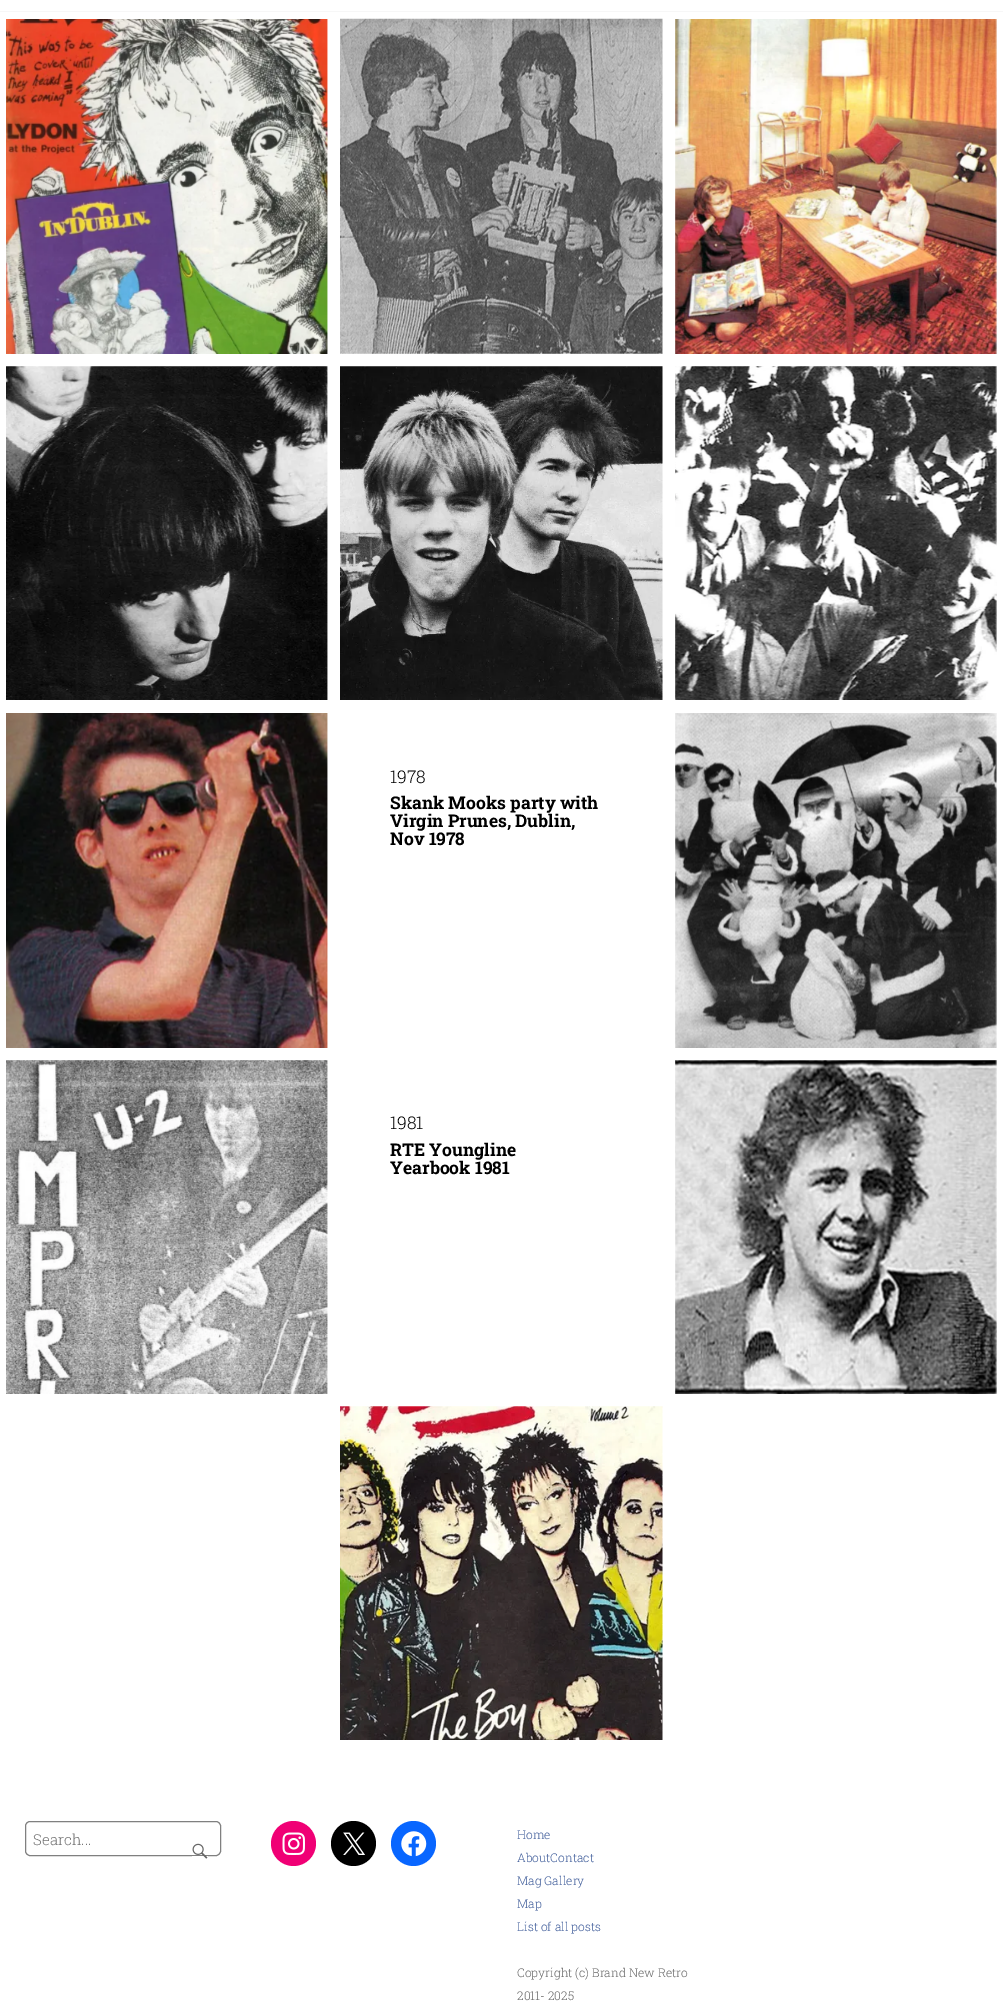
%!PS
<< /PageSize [1003 2007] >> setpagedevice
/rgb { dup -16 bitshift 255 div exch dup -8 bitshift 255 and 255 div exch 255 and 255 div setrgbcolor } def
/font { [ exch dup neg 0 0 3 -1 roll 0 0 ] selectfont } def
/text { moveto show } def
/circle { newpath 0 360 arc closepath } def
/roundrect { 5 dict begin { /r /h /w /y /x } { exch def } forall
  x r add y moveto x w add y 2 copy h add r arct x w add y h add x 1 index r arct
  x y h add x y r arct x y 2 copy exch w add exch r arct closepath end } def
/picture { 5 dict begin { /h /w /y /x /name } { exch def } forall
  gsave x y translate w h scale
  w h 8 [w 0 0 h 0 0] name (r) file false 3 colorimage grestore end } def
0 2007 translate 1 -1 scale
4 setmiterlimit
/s1 { /RobotoSlab-Light 17.5 font 16#000000 rgb } def
/s2 { /RobotoSlab-Bold 17.5 font 16#000000 rgb } def
/s3 { /RobotoSlab-Light 15 font 16#757575 rgb } def
/s4 { /RobotoSlab-Light 12 font 16#3B5998 rgb } def
/s5 { /RobotoSlab-Light 12 font 16#666666 rgb } def
16#FFFFFF rgb
0 0 1003 2007 rectfill
16#F7F7F7 rgb
0 11 1003 1 rectfill
(pic1.raw) 6 19 322 335 picture
(pic2.raw) 340 18 323 336 picture
(pic3.raw) 675 19 322 335 picture
(pic4.raw) 6 366 322 334 picture
(pic5.raw) 340 366 323 334 picture
(pic6.raw) 675 366 322 334 picture
(pic7.raw) 6 713 322 335 picture
s1
(1978) 390 783 text
s2
(Skank Mooks party with) 390 809 text
(Virgin Prunes, Dublin,) 390 827 text
(Nov 1978) 390 845 text
(pic8.raw) 675 713 322 335 picture
(pic9.raw) 6 1060 322 334 picture
s1
(1981) 390 1129 text
s2
(RTE Youngline) 390 1156 text
(Yearbook 1981) 390 1174 text
(pic10.raw) 675 1060 322 334 picture
(pic11.raw) 340 1406 323 334 picture
16#808080 rgb
25.5 1821.5 195 34 4.5 roundrect stroke
s3
(Search...) 33 1845 text
(pic12.raw) 192 1843 16 16 picture
16#F00075 rgb
293.5 1843.5 22.5 circle fill
(pic13.raw) 282 1832 23 23 picture
16#000000 rgb
353.5 1843.5 22.5 circle fill
(pic14.raw) 343 1832 22 23 picture
16#0866FF rgb
413.5 1843.5 22.5 circle fill
(pic15.raw) 401 1831 26 26 picture
s4
(Home) 517 1839 text
(AboutContact) 517 1862 text
(Mag Gallery) 517 1885 text
(Map) 517 1908 text
(List of all posts) 517 1931 text
s5
(Copyright \(c\) Brand New Retro) 517 1977 text
(2011- 2025) 517 2000 text
showpage
